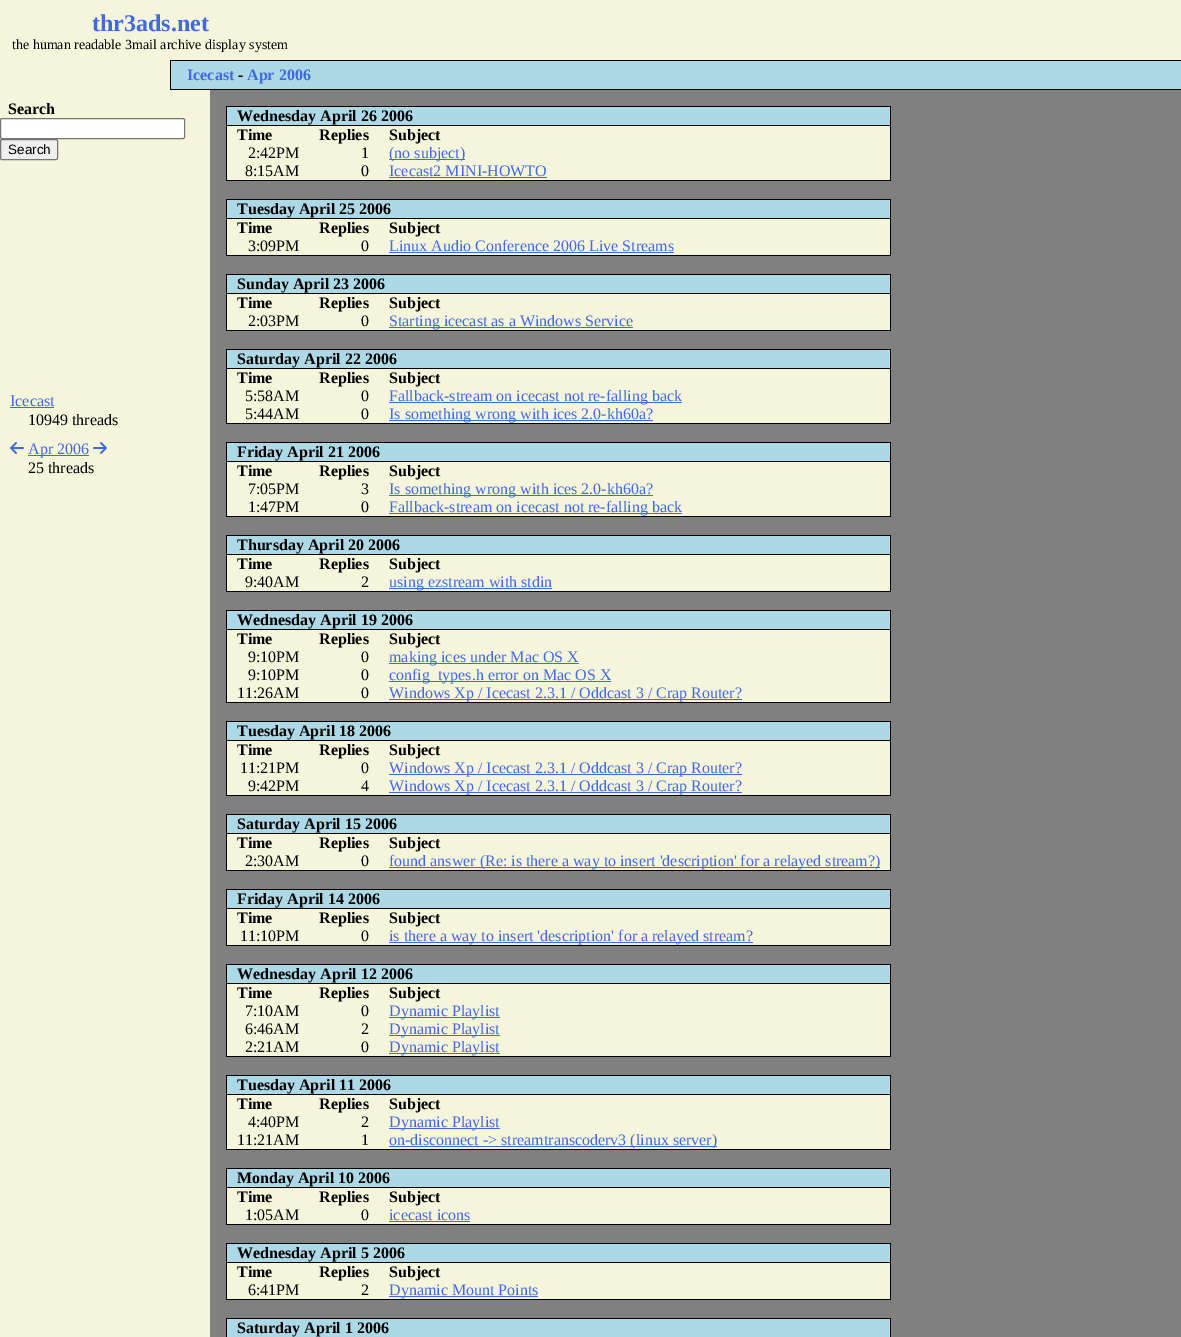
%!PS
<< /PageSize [1181 1337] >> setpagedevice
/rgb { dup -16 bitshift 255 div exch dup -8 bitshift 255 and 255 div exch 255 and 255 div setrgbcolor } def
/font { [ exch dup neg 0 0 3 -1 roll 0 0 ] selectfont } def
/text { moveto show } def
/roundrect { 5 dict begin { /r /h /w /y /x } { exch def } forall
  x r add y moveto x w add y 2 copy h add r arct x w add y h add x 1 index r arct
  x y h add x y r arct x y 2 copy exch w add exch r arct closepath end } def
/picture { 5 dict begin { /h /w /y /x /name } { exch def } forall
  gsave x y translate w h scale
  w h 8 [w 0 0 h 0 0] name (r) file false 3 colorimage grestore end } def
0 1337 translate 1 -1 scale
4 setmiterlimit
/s1 { /LiberationSerif-Bold 24 font 16#4169E1 rgb } def
/s2 { /LiberationSerif-Regular 14 font 16#000000 rgb } def
/s3 { /LiberationSerif-Bold 16 font 16#4169E1 rgb } def
/s4 { /LiberationSerif-Bold 16 font 16#000000 rgb } def
/s5 { /LiberationSans-Regular 13.5 font 16#000000 rgb } def
/s6 { /LiberationSerif-Regular 16 font 16#4169E1 rgb } def
/s7 { /LiberationSerif-Regular 16 font 16#000000 rgb } def
16#F5F5DC rgb
0 0 1181 1337 rectfill
s1
(thr3ads.net) 92 31 text
s2
(the human readable 3mail archive display system) 12 49 text
16#ADD8E6 rgb
171 61 1010 28 rectfill
16#000000 rgb
170 60 1011 1 rectfill
170 89 1011 1 rectfill
170 60 1 30 rectfill
s3
(Icecast) 187 80 text
s4
(-) 238 80 text
s3
(Apr 2006) 247 80 text
s4
(Search) 8 114 text
16#FFFFFF rgb
0.5 118.5 184 20 1.5 roundrect gsave fill grestore
16#767676 rgb
stroke
16#EFEFEF rgb
0.5 139.5 57 20 1.5 roundrect gsave fill grestore
16#767676 rgb
stroke
s5
(Search) 8 154 text
s6
(Icecast) 10 406 text
10 407 44 1 rectfill
s7
(10949 threads) 28 425 text
(pic1.raw) 10 442 14 12 picture
16#4169E1 rgb
28 455 61 1 rectfill
(Apr 2006) 28 454 text
(pic2.raw) 93 442 14 12 picture
s7
(25 threads) 28 473 text
16#808080 rgb
210 90 971 1247 rectfill
16#ADD8E6 rgb
227 107 663 18 rectfill
16#000000 rgb
226 180 665 1 rectfill
890 106 1 75 rectfill
226 106 1 75 rectfill
226 106 665 1 rectfill
226 125 665 1 rectfill
s4
(Wednesday April 26 2006) 237 121 text
16#F5F5DC rgb
227 126 663 18 rectfill
s4
(Time) 237 140 text
(Replies) 319 140 text
(Subject) 389 140 text
16#F5F5DC rgb
227 144 663 18 rectfill
s7
(2:42PM) 248 158 text
(1) 361 158 text
16#4169E1 rgb
389 159 76 1 rectfill
(\(no subject\)) 389 158 text
16#F5F5DC rgb
227 162 663 18 rectfill
s7
(8:15AM) 245 176 text
(0) 361 176 text
s6
(Icecast2 MINI-HOWTO) 389 176 text
389 177 158 1 rectfill
16#ADD8E6 rgb
227 200 663 18 rectfill
16#000000 rgb
226 255 665 1 rectfill
890 199 1 57 rectfill
226 199 1 57 rectfill
226 199 665 1 rectfill
226 218 665 1 rectfill
s4
(Tuesday April 25 2006) 237 214 text
16#F5F5DC rgb
227 219 663 18 rectfill
s4
(Time) 237 233 text
(Replies) 319 233 text
(Subject) 389 233 text
16#F5F5DC rgb
227 237 663 18 rectfill
s7
(3:09PM) 248 251 text
(0) 361 251 text
s6
(Linux Audio Conference 2006 Live Streams) 389 251 text
389 252 285 1 rectfill
16#ADD8E6 rgb
227 275 663 18 rectfill
16#000000 rgb
226 330 665 1 rectfill
890 274 1 57 rectfill
226 274 1 57 rectfill
226 274 665 1 rectfill
226 293 665 1 rectfill
s4
(Sunday April 23 2006) 237 289 text
16#F5F5DC rgb
227 294 663 18 rectfill
s4
(Time) 237 308 text
(Replies) 319 308 text
(Subject) 389 308 text
16#F5F5DC rgb
227 312 663 18 rectfill
s7
(2:03PM) 248 326 text
(0) 361 326 text
16#4169E1 rgb
389 327 244 1 rectfill
(Starting icecast as a Windows Service) 389 326 text
16#ADD8E6 rgb
227 350 663 18 rectfill
16#000000 rgb
226 423 665 1 rectfill
890 349 1 75 rectfill
226 349 1 75 rectfill
226 349 665 1 rectfill
226 368 665 1 rectfill
s4
(Saturday April 22 2006) 237 364 text
16#F5F5DC rgb
227 369 663 18 rectfill
s4
(Time) 237 383 text
(Replies) 319 383 text
(Subject) 389 383 text
16#F5F5DC rgb
227 387 663 18 rectfill
s7
(5:58AM) 245 401 text
(0) 361 401 text
16#4169E1 rgb
389 402 293 1 rectfill
(Fallback-stream on icecast not re-falling back) 389 401 text
16#F5F5DC rgb
227 405 663 18 rectfill
s7
(5:44AM) 245 419 text
(0) 361 419 text
16#4169E1 rgb
389 420 264 1 rectfill
(Is something wrong with ices 2.0-kh60a?) 389 419 text
16#ADD8E6 rgb
227 443 663 18 rectfill
16#000000 rgb
226 516 665 1 rectfill
890 442 1 75 rectfill
226 442 1 75 rectfill
226 442 665 1 rectfill
226 461 665 1 rectfill
s4
(Friday April 21 2006) 237 457 text
16#F5F5DC rgb
227 462 663 18 rectfill
s4
(Time) 237 476 text
(Replies) 319 476 text
(Subject) 389 476 text
16#F5F5DC rgb
227 480 663 18 rectfill
s7
(7:05PM) 248 494 text
(3) 361 494 text
16#4169E1 rgb
389 495 264 1 rectfill
(Is something wrong with ices 2.0-kh60a?) 389 494 text
16#F5F5DC rgb
227 498 663 18 rectfill
s7
(1:47PM) 248 512 text
(0) 361 512 text
16#4169E1 rgb
389 513 293 1 rectfill
(Fallback-stream on icecast not re-falling back) 389 512 text
16#ADD8E6 rgb
227 536 663 18 rectfill
16#000000 rgb
226 591 665 1 rectfill
890 535 1 57 rectfill
226 535 1 57 rectfill
226 535 665 1 rectfill
226 554 665 1 rectfill
s4
(Thursday April 20 2006) 237 550 text
16#F5F5DC rgb
227 555 663 18 rectfill
s4
(Time) 237 569 text
(Replies) 319 569 text
(Subject) 389 569 text
16#F5F5DC rgb
227 573 663 18 rectfill
s7
(9:40AM) 245 587 text
(2) 361 587 text
16#4169E1 rgb
389 588 163 1 rectfill
(using ezstream with stdin) 389 587 text
16#ADD8E6 rgb
227 611 663 18 rectfill
16#000000 rgb
226 702 665 1 rectfill
890 610 1 93 rectfill
226 610 1 93 rectfill
226 610 665 1 rectfill
226 629 665 1 rectfill
s4
(Wednesday April 19 2006) 237 625 text
16#F5F5DC rgb
227 630 663 18 rectfill
s4
(Time) 237 644 text
(Replies) 319 644 text
(Subject) 389 644 text
16#F5F5DC rgb
227 648 663 18 rectfill
s7
(9:10PM) 248 662 text
(0) 361 662 text
16#4169E1 rgb
389 663 190 1 rectfill
(making ices under Mac OS X) 389 662 text
16#F5F5DC rgb
227 666 663 18 rectfill
s7
(9:10PM) 248 680 text
(0) 361 680 text
16#4169E1 rgb
389 681 222 1 rectfill
(config_types.h error on Mac OS X) 389 680 text
16#F5F5DC rgb
227 684 663 18 rectfill
s7
(11:26AM) 237 698 text
(0) 361 698 text
16#4169E1 rgb
389 699 353 1 rectfill
(Windows Xp / Icecast 2.3.1 / Oddcast 3 / Crap Router?) 389 698 text
16#ADD8E6 rgb
227 722 663 18 rectfill
16#000000 rgb
226 795 665 1 rectfill
890 721 1 75 rectfill
226 721 1 75 rectfill
226 721 665 1 rectfill
226 740 665 1 rectfill
s4
(Tuesday April 18 2006) 237 736 text
16#F5F5DC rgb
227 741 663 18 rectfill
s4
(Time) 237 755 text
(Replies) 319 755 text
(Subject) 389 755 text
16#F5F5DC rgb
227 759 663 18 rectfill
s7
(11:21PM) 240 773 text
(0) 361 773 text
16#4169E1 rgb
389 774 353 1 rectfill
(Windows Xp / Icecast 2.3.1 / Oddcast 3 / Crap Router?) 389 773 text
16#F5F5DC rgb
227 777 663 18 rectfill
s7
(9:42PM) 248 791 text
(4) 361 791 text
16#4169E1 rgb
389 792 353 1 rectfill
(Windows Xp / Icecast 2.3.1 / Oddcast 3 / Crap Router?) 389 791 text
16#ADD8E6 rgb
227 815 663 18 rectfill
16#000000 rgb
226 870 665 1 rectfill
890 814 1 57 rectfill
226 814 1 57 rectfill
226 814 665 1 rectfill
226 833 665 1 rectfill
s4
(Saturday April 15 2006) 237 829 text
16#F5F5DC rgb
227 834 663 18 rectfill
s4
(Time) 237 848 text
(Replies) 319 848 text
(Subject) 389 848 text
16#F5F5DC rgb
227 852 663 18 rectfill
s7
(2:30AM) 245 866 text
(0) 361 866 text
16#4169E1 rgb
389 867 491 1 rectfill
(found answer \(Re: is there a way to insert 'description' for a relayed stream?\)) 389 866 text
16#ADD8E6 rgb
227 890 663 18 rectfill
16#000000 rgb
226 945 665 1 rectfill
890 889 1 57 rectfill
226 889 1 57 rectfill
226 889 665 1 rectfill
226 908 665 1 rectfill
s4
(Friday April 14 2006) 237 904 text
16#F5F5DC rgb
227 909 663 18 rectfill
s4
(Time) 237 923 text
(Replies) 319 923 text
(Subject) 389 923 text
16#F5F5DC rgb
227 927 663 18 rectfill
s7
(11:10PM) 240 941 text
(0) 361 941 text
16#4169E1 rgb
389 942 364 1 rectfill
(is there a way to insert 'description' for a relayed stream?) 389 941 text
16#ADD8E6 rgb
227 965 663 18 rectfill
16#000000 rgb
226 1056 665 1 rectfill
890 964 1 93 rectfill
226 964 1 93 rectfill
226 964 665 1 rectfill
226 983 665 1 rectfill
s4
(Wednesday April 12 2006) 237 979 text
16#F5F5DC rgb
227 984 663 18 rectfill
s4
(Time) 237 998 text
(Replies) 319 998 text
(Subject) 389 998 text
16#F5F5DC rgb
227 1002 663 18 rectfill
s7
(7:10AM) 245 1016 text
(0) 361 1016 text
16#4169E1 rgb
389 1017 111 1 rectfill
(Dynamic Playlist) 389 1016 text
16#F5F5DC rgb
227 1020 663 18 rectfill
s7
(6:46AM) 245 1034 text
(2) 361 1034 text
16#4169E1 rgb
389 1035 111 1 rectfill
(Dynamic Playlist) 389 1034 text
16#F5F5DC rgb
227 1038 663 18 rectfill
s7
(2:21AM) 245 1052 text
(0) 361 1052 text
16#4169E1 rgb
389 1053 111 1 rectfill
(Dynamic Playlist) 389 1052 text
16#ADD8E6 rgb
227 1076 663 18 rectfill
16#000000 rgb
226 1149 665 1 rectfill
890 1075 1 75 rectfill
226 1075 1 75 rectfill
226 1075 665 1 rectfill
226 1094 665 1 rectfill
s4
(Tuesday April 11 2006) 237 1090 text
16#F5F5DC rgb
227 1095 663 18 rectfill
s4
(Time) 237 1109 text
(Replies) 319 1109 text
(Subject) 389 1109 text
16#F5F5DC rgb
227 1113 663 18 rectfill
s7
(4:40PM) 248 1127 text
(2) 361 1127 text
16#4169E1 rgb
389 1128 111 1 rectfill
(Dynamic Playlist) 389 1127 text
16#F5F5DC rgb
227 1131 663 18 rectfill
s7
(11:21AM) 237 1145 text
(1) 361 1145 text
16#4169E1 rgb
389 1146 328 1 rectfill
(on-disconnect -> streamtranscoderv3 \(linux server\)) 389 1145 text
16#ADD8E6 rgb
227 1169 663 18 rectfill
16#000000 rgb
226 1224 665 1 rectfill
890 1168 1 57 rectfill
226 1168 1 57 rectfill
226 1168 665 1 rectfill
226 1187 665 1 rectfill
s4
(Monday April 10 2006) 237 1183 text
16#F5F5DC rgb
227 1188 663 18 rectfill
s4
(Time) 237 1202 text
(Replies) 319 1202 text
(Subject) 389 1202 text
16#F5F5DC rgb
227 1206 663 18 rectfill
s7
(1:05AM) 245 1220 text
(0) 361 1220 text
s6
(icecast icons) 389 1220 text
389 1221 81 1 rectfill
16#ADD8E6 rgb
227 1244 663 18 rectfill
16#000000 rgb
226 1299 665 1 rectfill
890 1243 1 57 rectfill
226 1243 1 57 rectfill
226 1243 665 1 rectfill
226 1262 665 1 rectfill
s4
(Wednesday April 5 2006) 237 1258 text
16#F5F5DC rgb
227 1263 663 18 rectfill
s4
(Time) 237 1277 text
(Replies) 319 1277 text
(Subject) 389 1277 text
16#F5F5DC rgb
227 1281 663 18 rectfill
s7
(6:41PM) 248 1295 text
(2) 361 1295 text
16#4169E1 rgb
389 1296 149 1 rectfill
(Dynamic Mount Points) 389 1295 text
16#000000 rgb
890 1318 1 19 rectfill
226 1318 1 19 rectfill
16#ADD8E6 rgb
227 1319 663 18 rectfill
16#000000 rgb
226 1318 665 1 rectfill
s4
(Saturday April 1 2006) 237 1333 text
showpage
